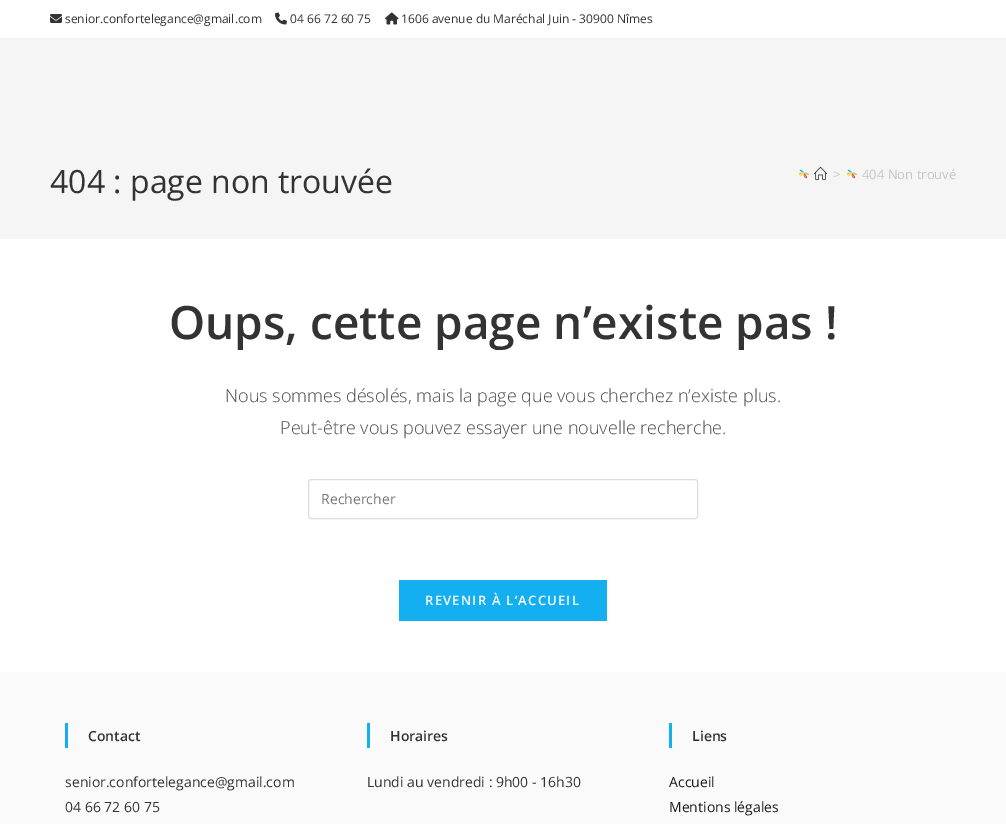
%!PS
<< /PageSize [1006 824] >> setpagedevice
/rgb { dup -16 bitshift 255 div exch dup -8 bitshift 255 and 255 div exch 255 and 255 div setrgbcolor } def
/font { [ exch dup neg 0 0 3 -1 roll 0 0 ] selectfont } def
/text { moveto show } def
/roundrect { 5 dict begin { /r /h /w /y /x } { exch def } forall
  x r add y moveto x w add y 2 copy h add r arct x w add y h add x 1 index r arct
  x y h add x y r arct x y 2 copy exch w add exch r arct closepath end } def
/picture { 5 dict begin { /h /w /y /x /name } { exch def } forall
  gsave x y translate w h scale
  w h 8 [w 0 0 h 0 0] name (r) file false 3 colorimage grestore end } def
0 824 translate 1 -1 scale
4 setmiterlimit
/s1 { /OpenSans-Regular 12 font 16#333333 rgb } def
/s2 { /OpenSans-Regular 32 font 16#333333 rgb } def
/s3 { /OpenSans-Regular 13 font 16#C6C6C6 rgb } def
/s4 { /OpenSans-SemiBold 46 font 16#333333 rgb } def
/s5 { /OpenSans-Light 18 font 16#4A4A4A rgb } def
/s6 { /OpenSans-Regular 14 font 16#757575 rgb } def
/s7 { /OpenSans-SemiBold 14 font 16#333333 rgb } def
/s8 { /OpenSans-Regular 14 font 16#333333 rgb } def
/s9 { /OpenSans-Regular 14 font 16#1B1B1B rgb } def
16#FFFFFF rgb
0 0 1006 824 rectfill
16#F1F1F1 rgb
0 38 1006 1 rectfill
(pic1.raw) 50 14 12 9 picture
s1
(senior.confortelegance@gmail.com) 65 23 text
(pic2.raw) 275 12 12 13 picture
(04 66 72 60 75) 290 23 text
(pic3.raw) 385 12 14 13 picture
(1606 avenue du Maréchal Juin - 30900 Nîmes) 401 23 text
16#F5F5F5 rgb
0 39 1006 200 rectfill
s2
(404 : page non trouvée) 50 193 text
(pic4.raw) 799 169 10 10 picture
(pic5.raw) 814 166 13 14 picture
s3
(>) 833 179 text
(pic4.raw) 847 169 10 10 picture
(404 Non trouvé) 862 179 text
s4
(Oups, cette page n’existe pas !) 169 339 text
s5
(Nous sommes désolés, mais la page que vous cherchez n’existe plus.) 225 402 text
(Peut-être vous pouvez essayer une nouvelle recherche.) 280 434 text
16#DDDDDD rgb
308.5 479.5 389 39 2.5 roundrect stroke
s6
(Rechercher) 321 504 text
16#13AFF0 rgb
399 580 208 41 rectfill
/OpenSans-SemiBold 13 font
16#FFFFFF rgb
425 605 moveto 1.25 0 (REVENIR À L’ACCUEIL) ashow
16#FAFAFA rgb
0 672 1006 152 rectfill
16#13AFF0 rgb
65 723 3 25 rectfill
s7
(Contact) 88 741 text
s8
(senior.confortelegance@gmail.com) 65 787 text
(04 66 72 60 75) 65 812 text
16#13AFF0 rgb
367 723 3 25 rectfill
s7
(Horaires) 390 741 text
s8
(Lundi au vendredi : 9h00 - 16h30) 367 787 text
16#13AFF0 rgb
669 723 3 25 rectfill
s7
(Liens) 692 741 text
s9
(Accueil) 669 787 text
(Mentions légales) 669 812 text
showpage
